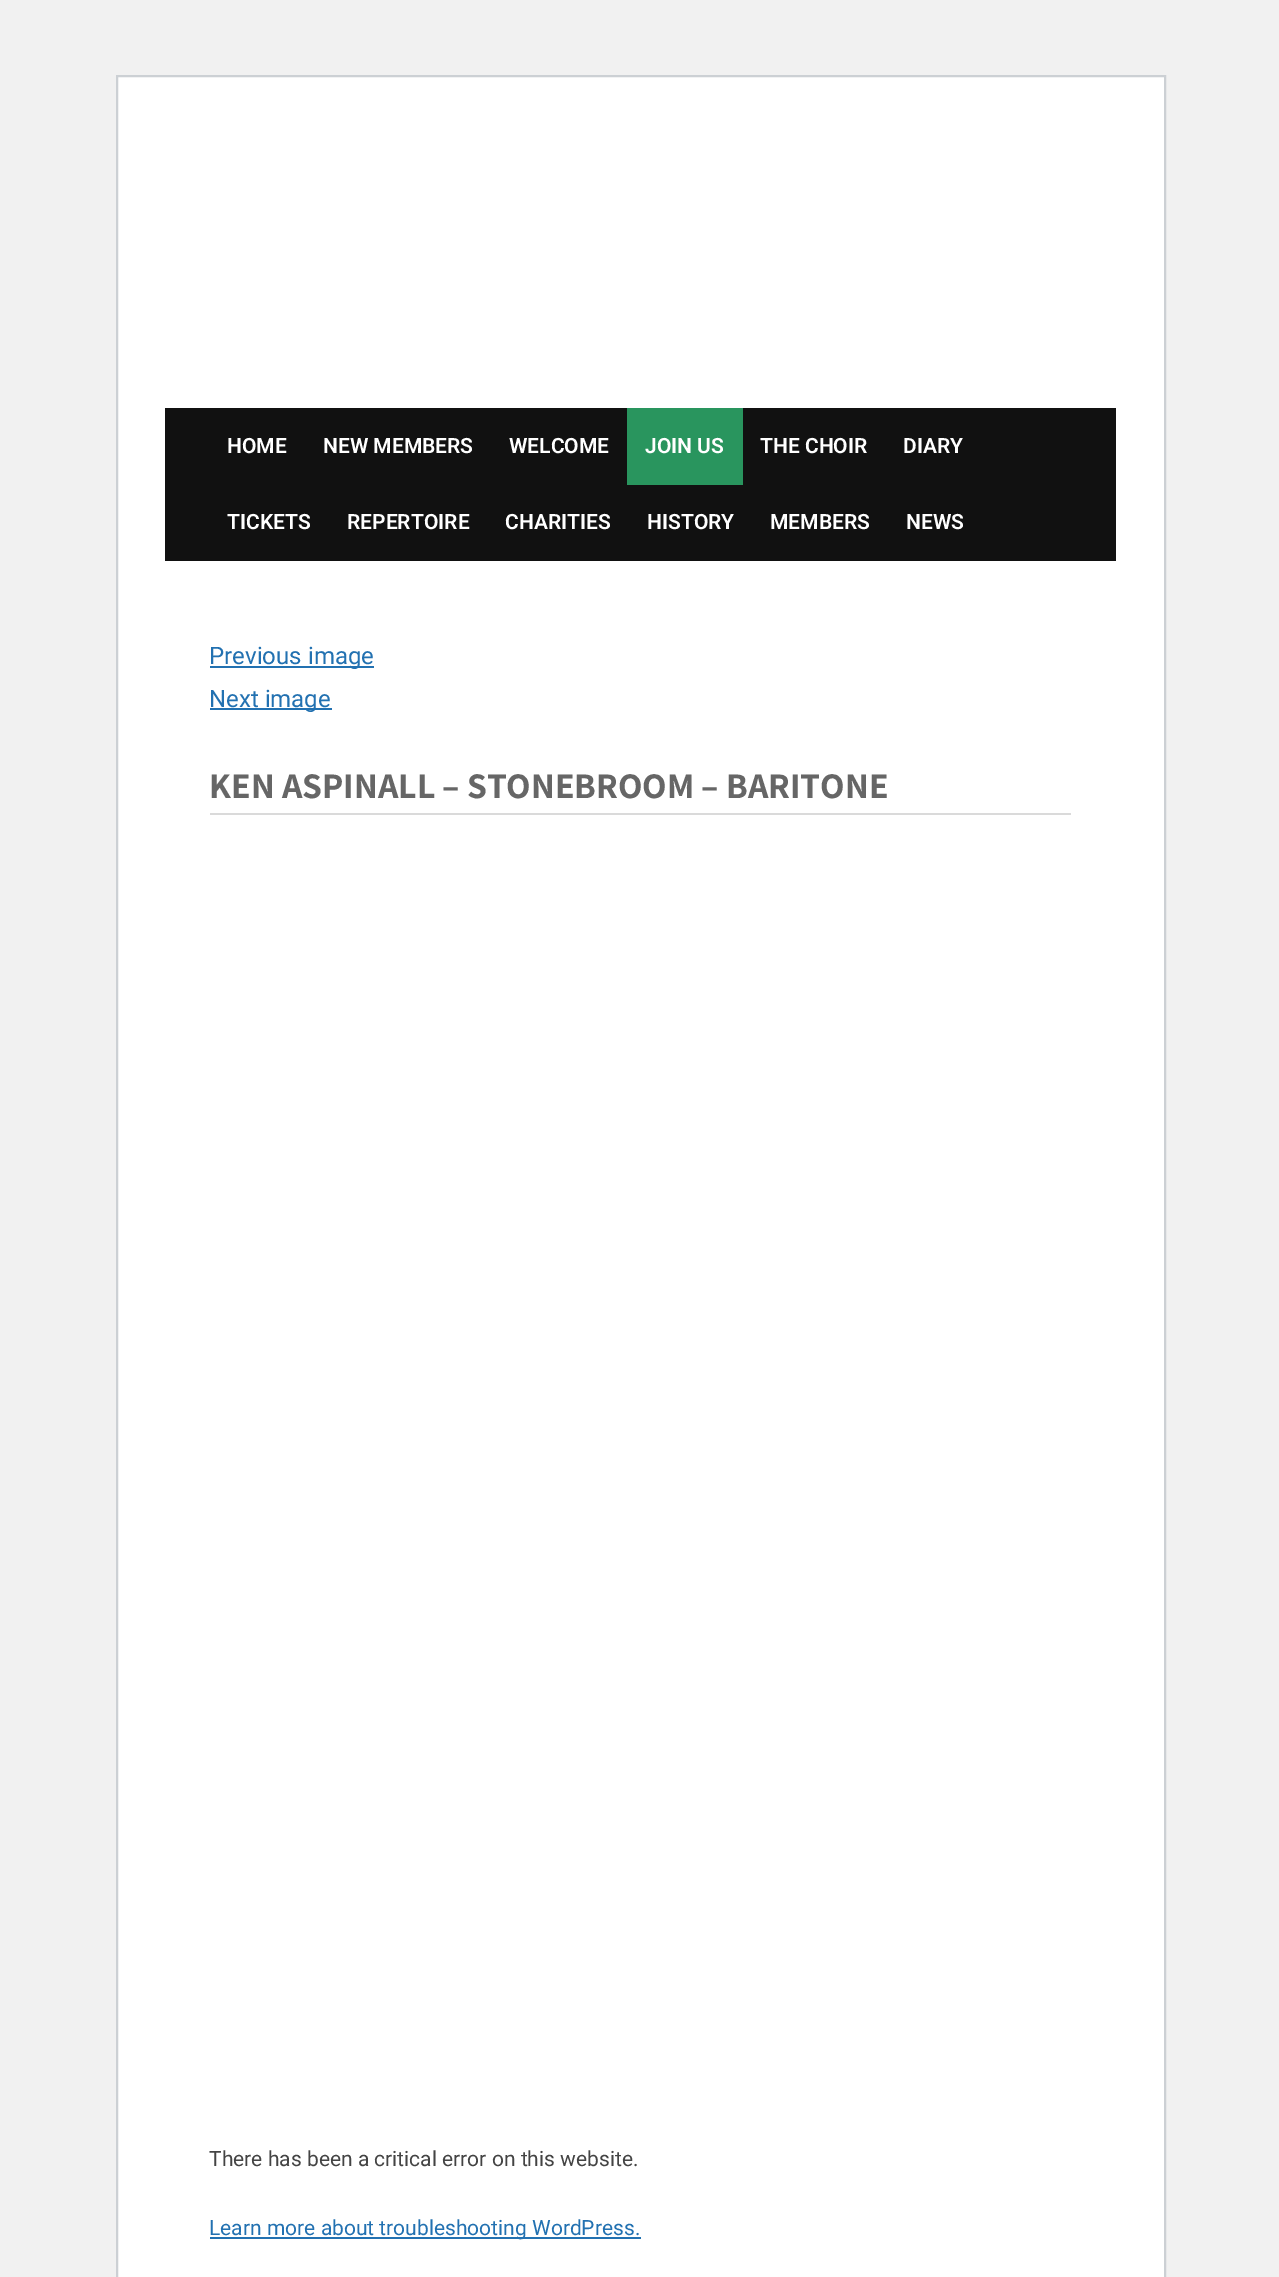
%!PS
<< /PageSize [1279 2277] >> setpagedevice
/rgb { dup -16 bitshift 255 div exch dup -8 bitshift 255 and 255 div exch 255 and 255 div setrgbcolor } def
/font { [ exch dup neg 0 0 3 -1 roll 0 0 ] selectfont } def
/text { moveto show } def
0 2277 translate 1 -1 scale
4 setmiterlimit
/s1 { /Roboto-SemiBold 21 font 16#FFFFFF rgb } def
/s2 { /Roboto-Regular 24 font 16#2271B1 rgb } def
/s3 { /Assistant-Bold 36 font 16#666666 rgb } def
/s4 { /Roboto-Regular 21 font 16#444444 rgb } def
/s5 { /Roboto-Regular 21 font 16#2271B1 rgb } def
16#F1F1F1 rgb
0 0 1279 2277 rectfill
16#FFFFFF rgb
117 76 moveto 1165 76 lineto 1165 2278 lineto 117 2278 lineto closepath gsave fill grestore
16#CCD0D4 rgb
2 setlinewidth
stroke
16#111111 rgb
165 408 951 153 rectfill
s1
(HOME) 227 453 text
(NEW MEMBERS) 323 453 text
(WELCOME) 509 453 text
16#29955E rgb
627 408 116 77 rectfill
s1
(JOIN US) 645 453 text
(THE CHOIR) 760 453 text
(DIARY) 903 453 text
(TICKETS) 227 529 text
(REPERTOIRE) 347 529 text
(CHARITIES) 505 529 text
(HISTORY) 647 529 text
(MEMBERS) 770 529 text
(NEWS) 906 529 text
16#2271B1 rgb
210 666 164 2 rectfill
s2
(Previous image) 209 664 text
210 708 122 2 rectfill
(Next image) 209 707 text
16#DADADA rgb
210 813 861 2 rectfill
s3
(KEN ASPINALL – STONEBROOM – BARITONE) 209 798 text
s4
(There has been a critical error on this website.) 209 2166 text
16#2271B1 rgb
210 2237 431 2 rectfill
(Learn more about troubleshooting WordPress.) 209 2235 text
showpage
